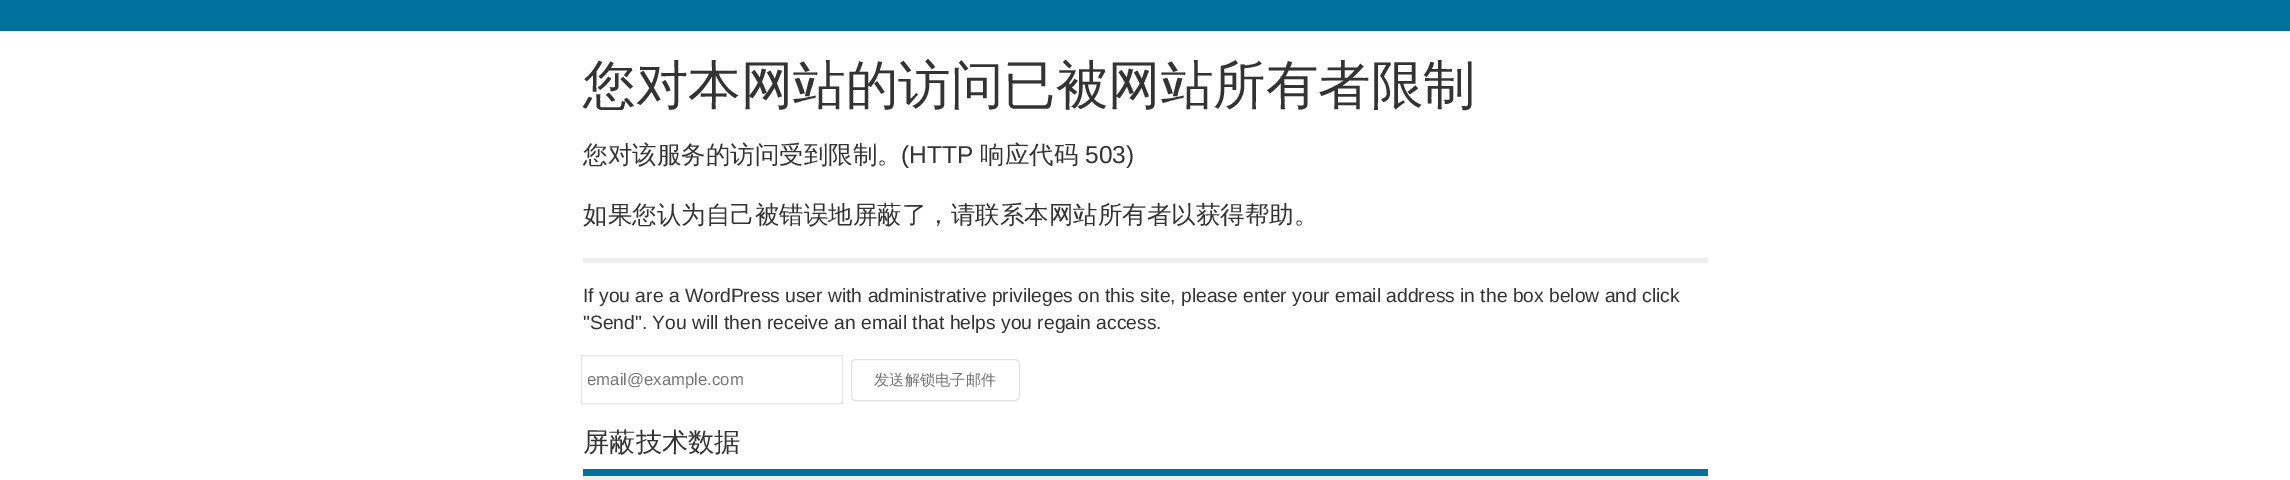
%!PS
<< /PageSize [2290 480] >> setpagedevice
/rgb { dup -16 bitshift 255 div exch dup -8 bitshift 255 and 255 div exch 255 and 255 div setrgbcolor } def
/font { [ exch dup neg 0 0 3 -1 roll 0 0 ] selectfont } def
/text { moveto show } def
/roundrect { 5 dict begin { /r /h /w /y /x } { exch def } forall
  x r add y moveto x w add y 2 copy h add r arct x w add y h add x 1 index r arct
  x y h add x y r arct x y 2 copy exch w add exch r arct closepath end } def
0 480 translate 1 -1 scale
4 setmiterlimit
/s1 { /WenQuanYiZenHei-Medium 52.5 font 16#333333 rgb } def
/s2 { /WenQuanYiZenHei-Medium 24.5 font 16#333333 rgb } def
/s3 { /LiberationSans-Regular 24.5 font 16#333333 rgb } def
/s4 { /LiberationSans-Regular 19.25 font 16#333333 rgb } def
/s5 { /LiberationSans-Regular 16.75 font 16#757575 rgb } def
/s6 { /WenQuanYiZenHei-Medium 15.25 font 16#757575 rgb } def
/s7 { /WenQuanYiZenHei-Medium 26.25 font 16#333333 rgb } def
16#FFFFFF rgb
0 0 2290 480 rectfill
16#00709E rgb
0 0 2290 31 rectfill
s1
(您对本网站的访问已被网站所有者限制) 583 103 text
s2
(您对该服务的访问受到限制。) 583 163 text
s3
(\(HTTP) 901 163 text
s2
(响应代码) 980 163 text
s3
(503\)) 1085 163 text
s2
(如果您认为自己被错误地屏蔽了，请联系本网站所有者以获得帮助。) 583 223 text
16#EEEEEE rgb
583 258 1125 5 rectfill
s4
(If you are a WordPress user with administrative privileges on this site, please enter your email address in the box below and click) 583 302 text
("Send". You will then receive an email that helps you regain access.) 583 329 text
16#E5E5E5 rgb
581.5 355.5 261 48 rectstroke
gsave
588 370 250 19 rectclip
s5
(email@example.com) 587 385 text
grestore
16#E2E2E2 rgb
851.5 359.5 168 41 4.5 roundrect stroke
s6
(发送解锁电子邮件) 874 385 text
s7
(屏蔽技术数据) 583 451 text
16#00709E rgb
583 469 1125 7 rectfill
16#EEEEEE rgb
583 476 1125 4 rectfill
showpage
